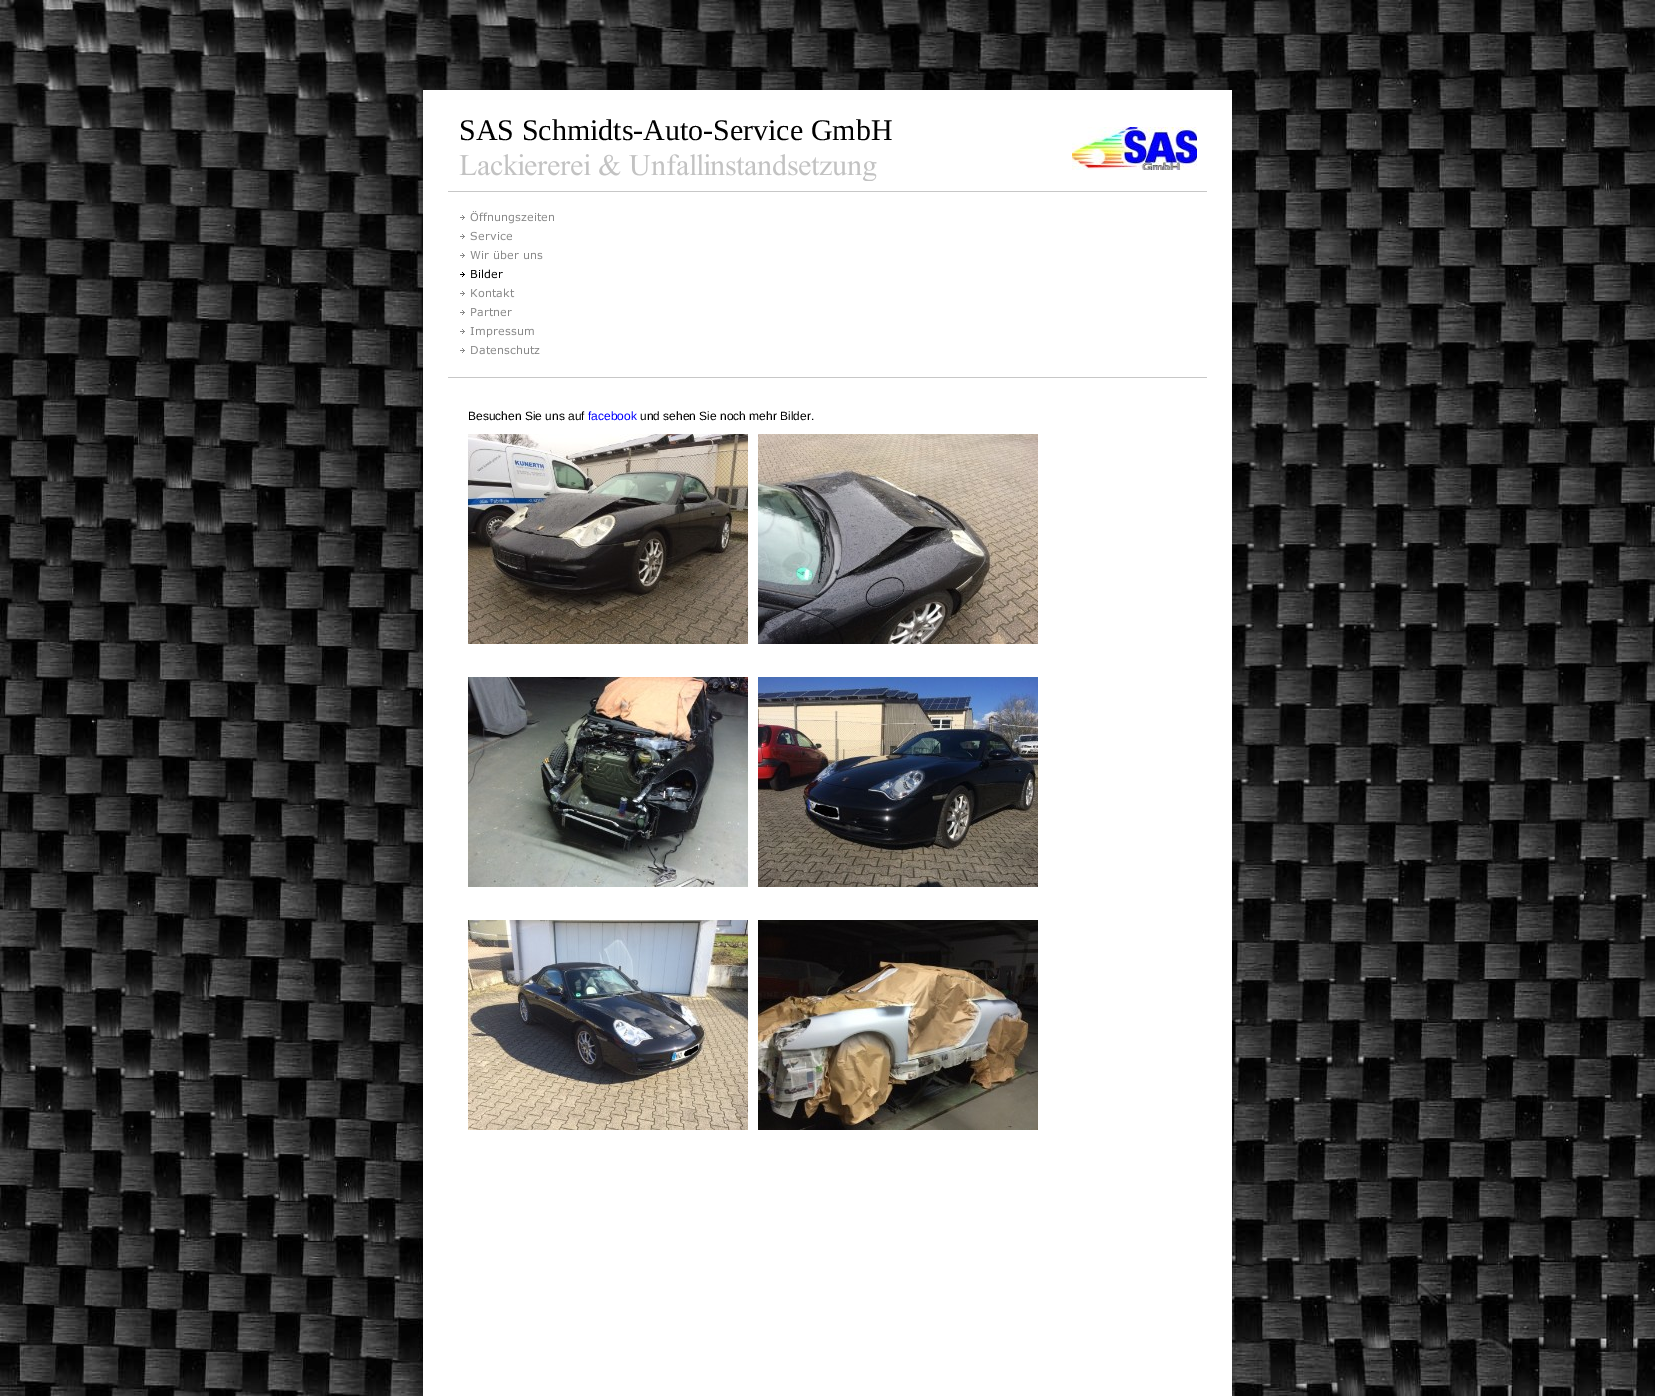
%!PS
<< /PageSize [1655 1396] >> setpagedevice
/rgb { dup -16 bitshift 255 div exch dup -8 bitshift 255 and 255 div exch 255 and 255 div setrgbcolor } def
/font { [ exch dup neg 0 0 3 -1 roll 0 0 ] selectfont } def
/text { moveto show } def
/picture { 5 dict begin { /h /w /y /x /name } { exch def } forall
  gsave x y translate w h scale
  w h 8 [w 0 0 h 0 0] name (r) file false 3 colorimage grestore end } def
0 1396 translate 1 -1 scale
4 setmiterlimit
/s1 { /LiberationSerif-Regular 30 font 16#000000 rgb } def
/s2 { /LiberationSans-Regular 12 font 16#000000 rgb } def
/s3 { /LiberationSans-Regular 12 font 16#0000FF rgb } def
16#FFFFFF rgb
0 0 1655 1396 rectfill
(pic1.raw) 0 0 1655 1396 picture
(pic2.raw) 419 89 4 1 picture
(pic3.raw) 423 80 805 10 picture
(pic4.raw) 413 90 10 1306 picture
423 90 809 1306 rectfill
s1
(SAS Schmidts-Auto-Service GmbH) 459 140 text
(pic5.raw) 459 154 418 27 picture
(pic6.raw) 1072 127 125 43 picture
16#C7C7C7 rgb
448 191 759 1 rectfill
448 377 759 1 rectfill
(pic7.raw) 460 211 94 13 picture
(pic8.raw) 460 231 52 10 picture
(pic9.raw) 460 250 83 10 picture
(pic10.raw) 460 269 43 10 picture
(pic11.raw) 460 288 55 10 picture
(pic12.raw) 460 308 52 9 picture
(pic13.raw) 460 327 74 11 picture
(pic14.raw) 460 345 80 10 picture
s2
(Besuchen Sie uns auf) 468 420 text
s3
(facebook) 588 420 text
s2
(und sehen Sie noch mehr Bilder.) 640 420 text
(pic15.raw) 468 434 280 210 picture
(pic16.raw) 758 434 280 210 picture
(pic17.raw) 468 677 280 210 picture
(pic18.raw) 758 677 280 210 picture
(pic19.raw) 468 920 280 210 picture
(pic20.raw) 758 920 280 210 picture
(pic21.raw) 1232 105 10 1291 picture
showpage
